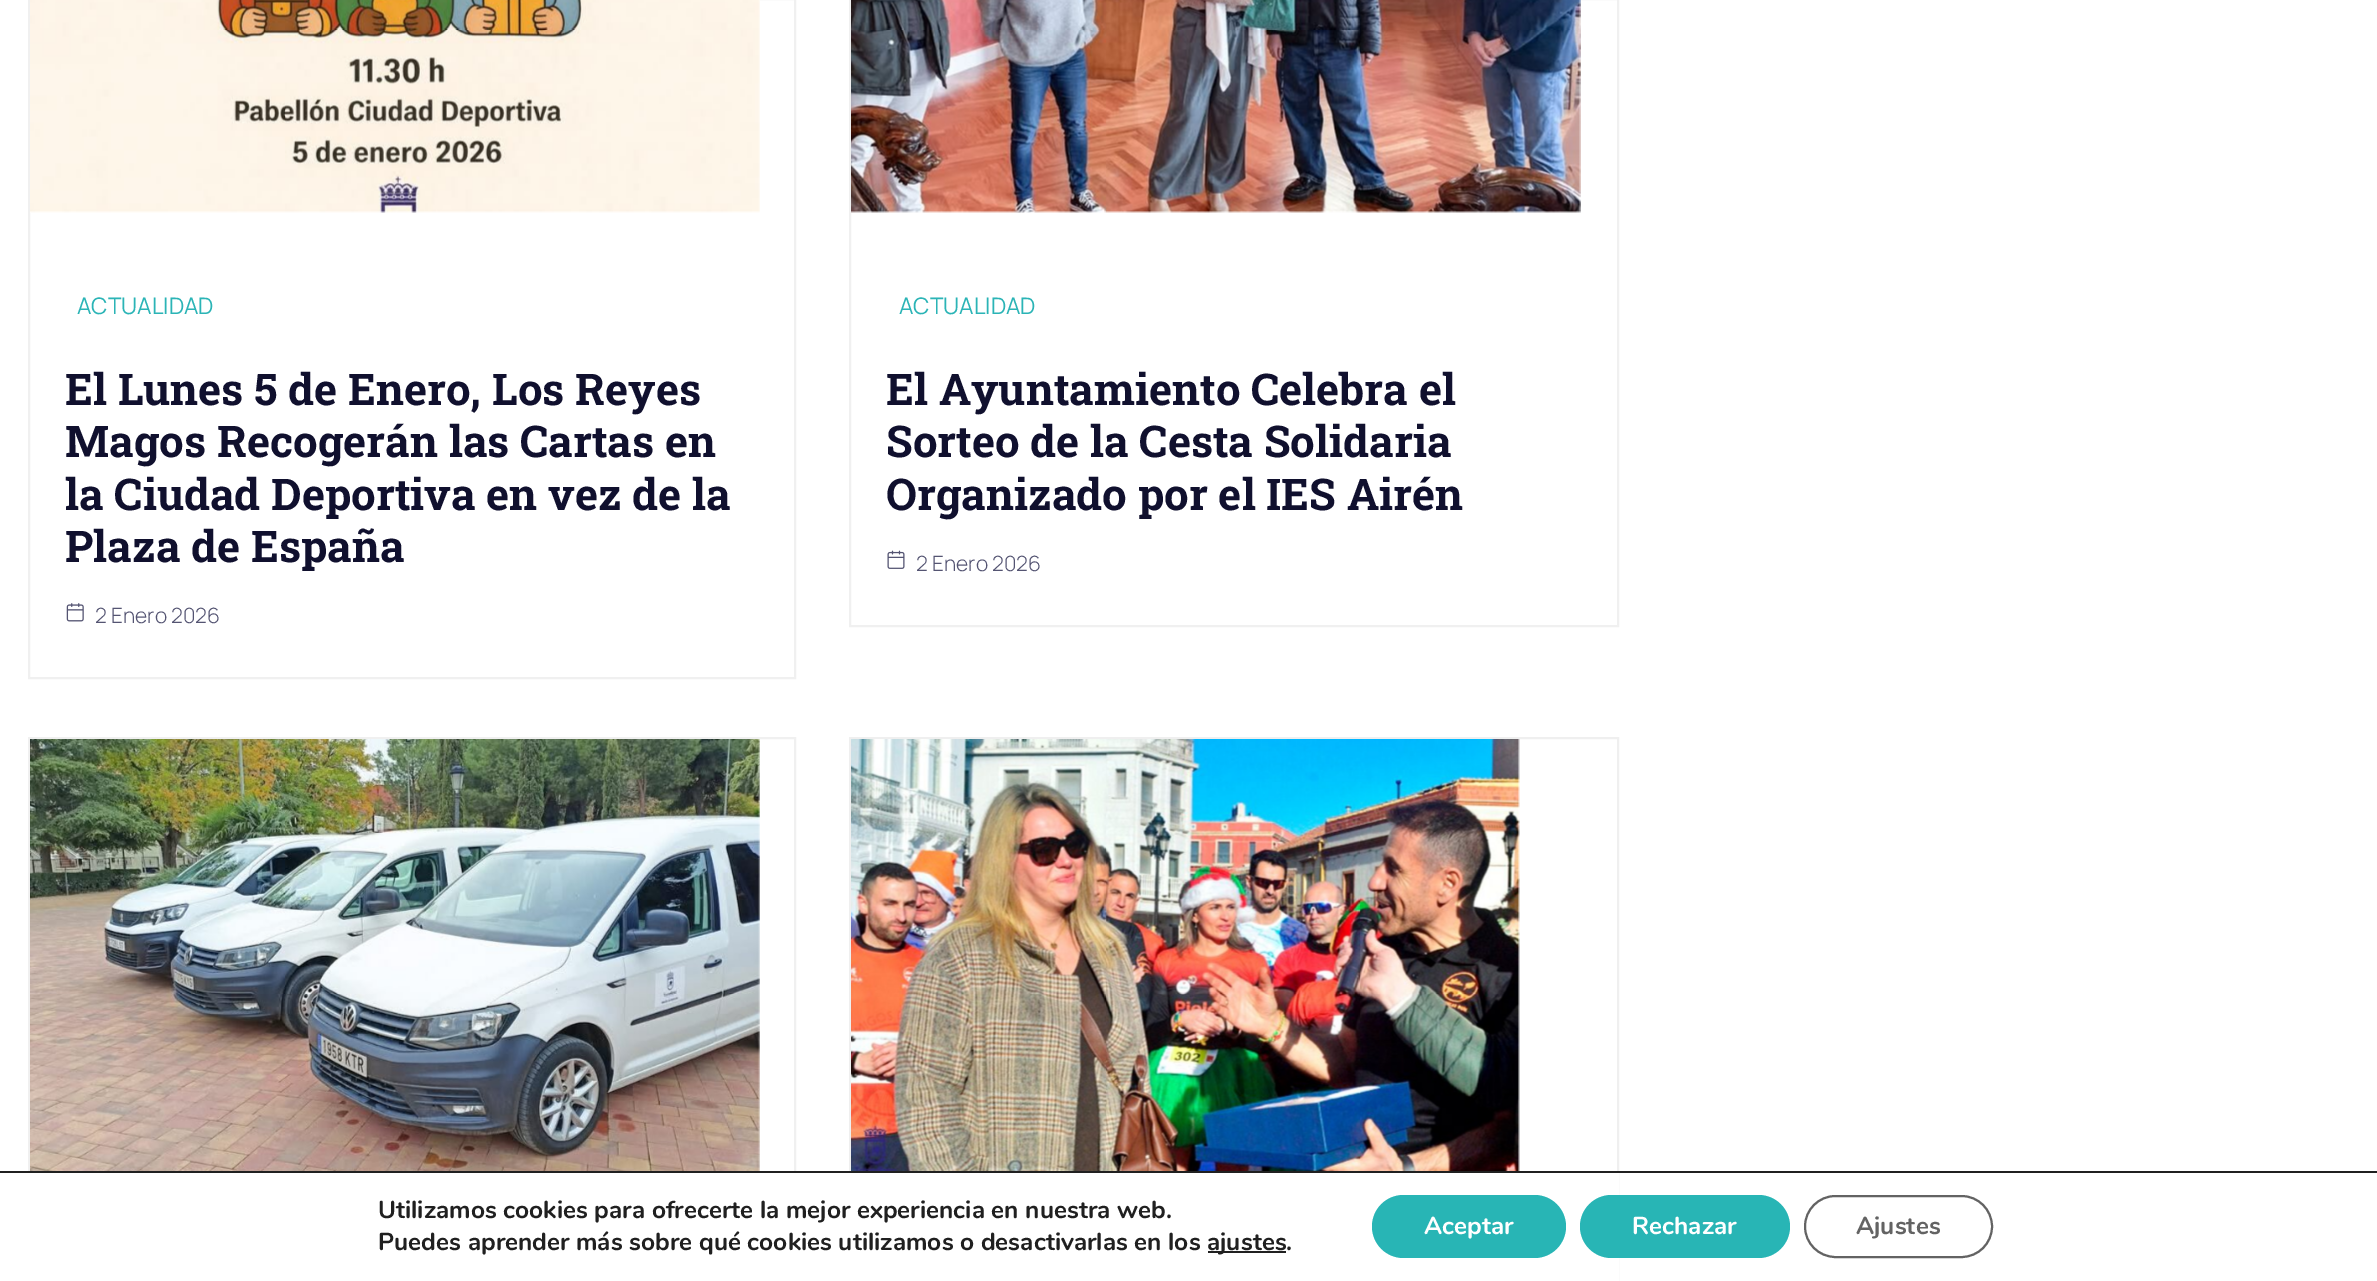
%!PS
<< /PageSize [2377 1281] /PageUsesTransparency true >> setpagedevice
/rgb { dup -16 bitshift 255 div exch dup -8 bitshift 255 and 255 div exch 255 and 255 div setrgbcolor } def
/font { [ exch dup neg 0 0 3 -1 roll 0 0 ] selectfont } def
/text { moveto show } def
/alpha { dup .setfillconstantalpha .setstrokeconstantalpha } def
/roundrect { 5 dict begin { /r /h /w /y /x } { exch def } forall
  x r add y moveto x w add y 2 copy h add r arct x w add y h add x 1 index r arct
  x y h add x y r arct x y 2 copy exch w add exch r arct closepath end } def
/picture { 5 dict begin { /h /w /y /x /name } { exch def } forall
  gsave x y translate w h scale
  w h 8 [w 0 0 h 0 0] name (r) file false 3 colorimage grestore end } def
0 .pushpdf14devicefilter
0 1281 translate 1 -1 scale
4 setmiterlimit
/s1 { /Manrope-Regular 22.75 font 16#2BB4B6 rgb } def
/s2 { /RobotoSlab-Bold 43.75 font 16#10102E rgb } def
/s3 { /Manrope-Light 21 font 16#545472 rgb } def
/s4 { /Nunito-Bold 24.5 font 16#202020 rgb } def
/s5 { /Nunito-Bold 24.5 font 16#FFFFFF rgb } def
/s6 { /Nunito-Bold 24.5 font 16#636363 rgb } def
16#FFFFFF rgb
0 0 2377 1281 rectfill
16#F0F0F0 rgb
2 setlinewidth
29 -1 766 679 rectstroke
(pic1.raw) 30 0 730 213 picture
s1
(ACTUALIDAD) 77 314 text
s2
(El Lunes 5 de Enero, Los Reyes) 65 405 text
(Magos Recogerán las Cartas en) 65 457 text
(la Ciudad Deportiva en vez de la) 65 510 text
(Plaza de España) 65 562 text
(pic2.raw) 66 603 18 19 picture
s3
(2 Enero 2026) 95 623 text
0.06 alpha
16#000000 rgb
850 -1 768 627 rectstroke
1 alpha
(pic3.raw) 851 0 730 213 picture
s1
(ACTUALIDAD) 899 314 text
s2
(El Ayuntamiento Celebra el) 886 405 text
(Sorteo de la Cesta Solidaria) 886 457 text
(Organizado por el IES Airén) 886 510 text
(pic4.raw) 887 550 18 19 picture
s3
(2 Enero 2026) 916 571 text
16#F0F0F0 rgb
29 738 766 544 rectstroke
(pic5.raw) 30 739 730 432 picture
16#EFEFEF rgb
850 738 768 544 rectstroke
(pic6.raw) 851 739 669 432 picture
16#FFFFFF rgb
28 1173 1591 108 rectfill
16#202020 rgb
0 1171 2377 2 rectfill
s4
(Utilizamos cookies para ofrecerte la mejor experiencia en nuestra web.) 378 1218 text
(Puedes aprender más sobre qué cookies utilizamos o desactivarlas en los) 378 1250 text
1208 1251 78 2 rectfill
(ajustes.) 1207 1250 text
16#28B5B5 rgb
1372 1195 194 63 31.5 roundrect fill
s5
(Aceptar) 1424 1234 text
16#28B5B5 rgb
1580 1195 210 63 31.5 roundrect fill
s5
(Rechazar) 1632 1234 text
16#636363 rgb
1805 1196 187 61 30.5 roundrect stroke
(Ajustes) 1856 1234 text
.poppdf14devicefilter showpage
